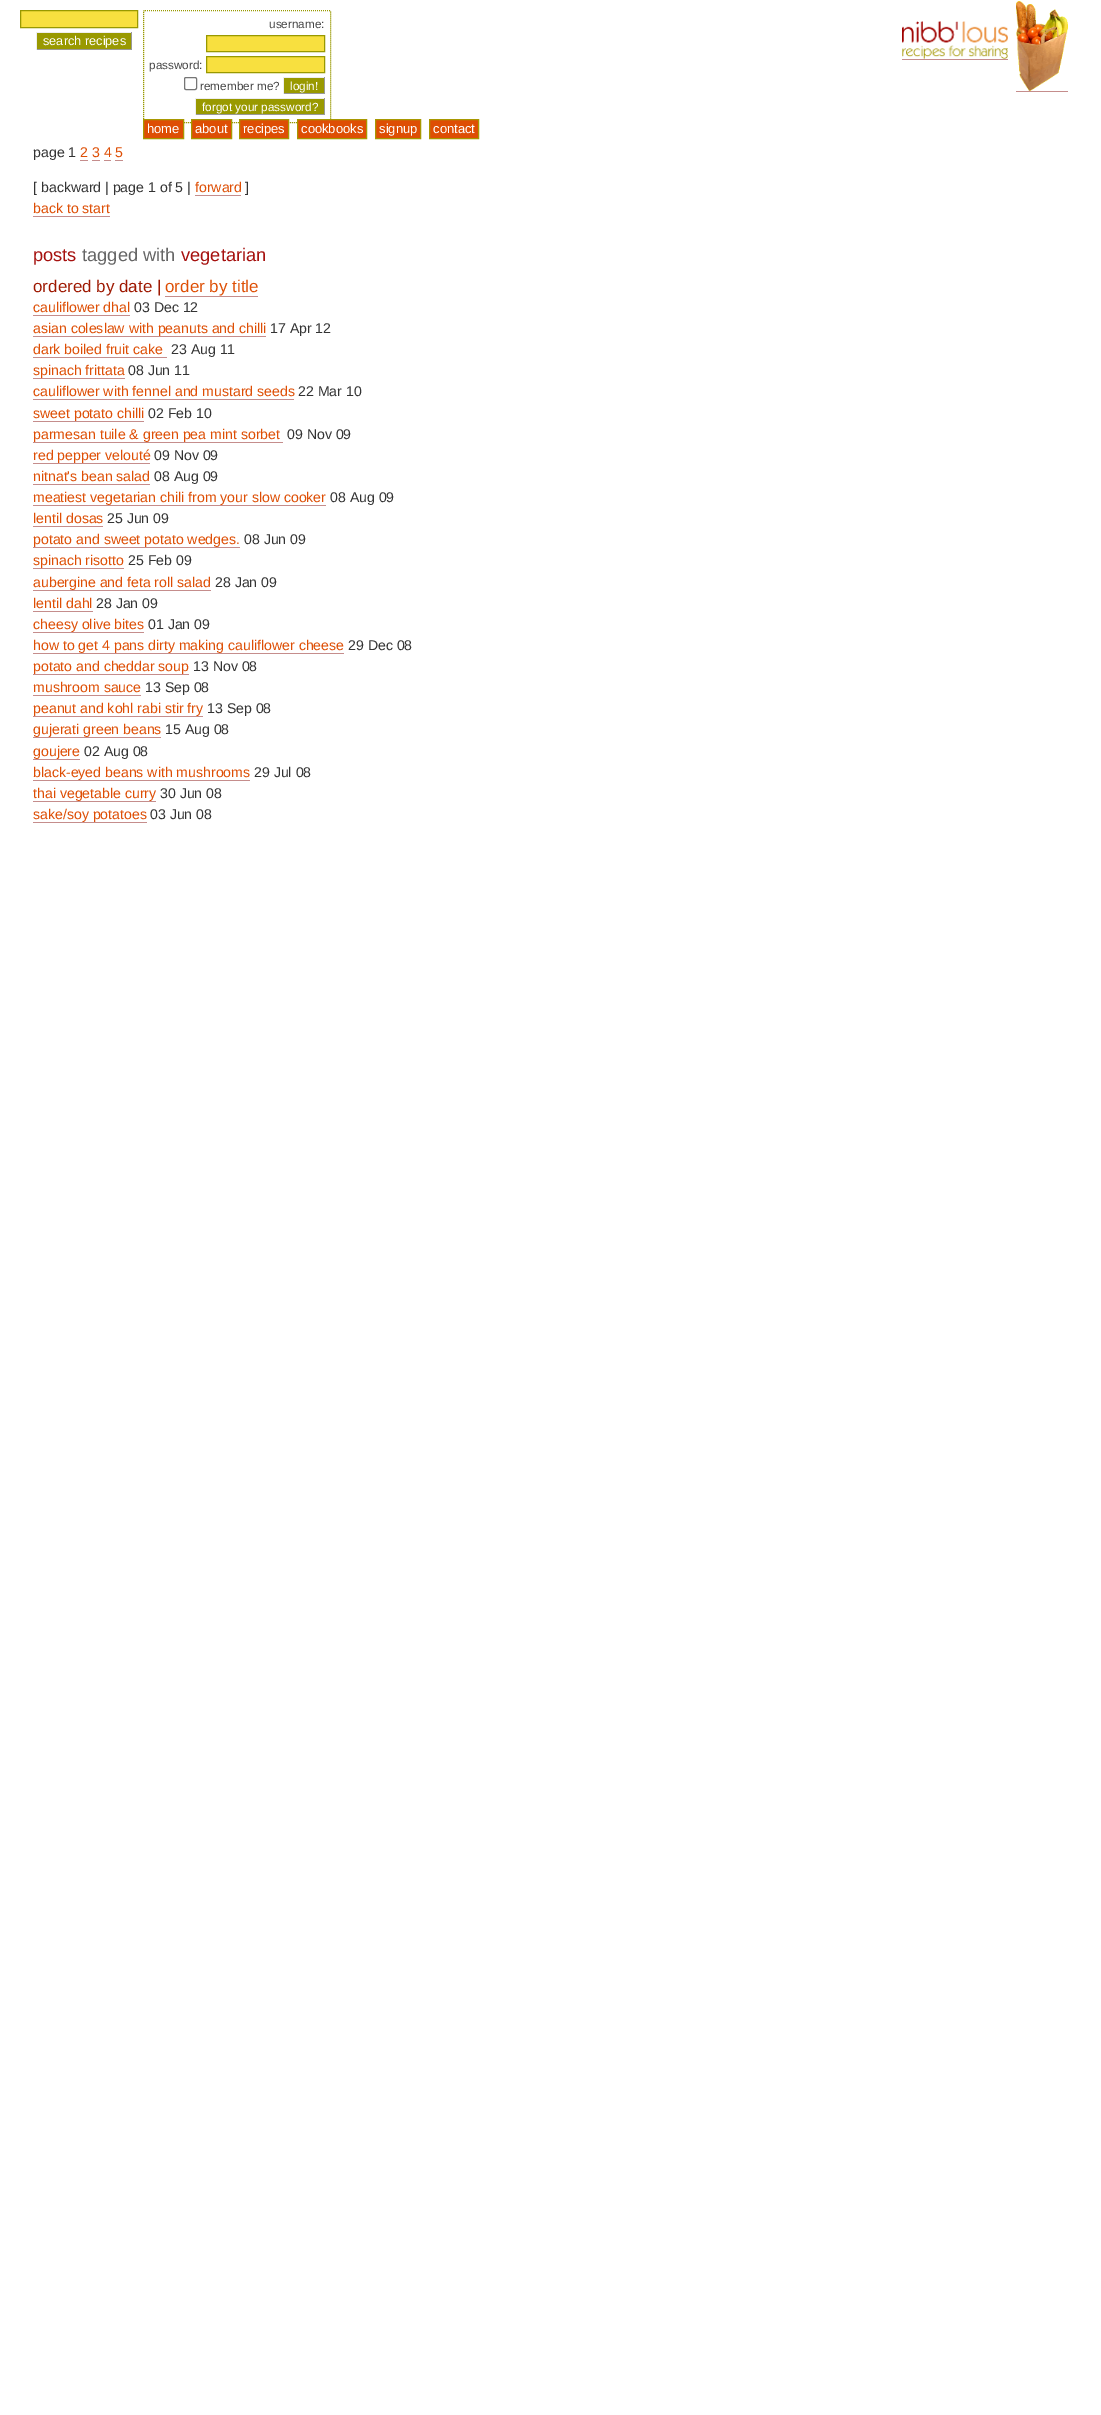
%!PS
<< /PageSize [1101 2415] >> setpagedevice
/rgb { dup -16 bitshift 255 div exch dup -8 bitshift 255 and 255 div exch 255 and 255 div setrgbcolor } def
/font { [ exch dup neg 0 0 3 -1 roll 0 0 ] selectfont } def
/text { moveto show } def
/roundrect { 5 dict begin { /r /h /w /y /x } { exch def } forall
  x r add y moveto x w add y 2 copy h add r arct x w add y h add x 1 index r arct
  x y h add x y r arct x y 2 copy exch w add exch r arct closepath end } def
/picture { 5 dict begin { /h /w /y /x /name } { exch def } forall
  gsave x y translate w h scale
  w h 8 [w 0 0 h 0 0] name (r) file false 3 colorimage grestore end } def
0 2415 translate 1 -1 scale
4 setmiterlimit
/s1 { /LiberationSans-Regular 12.75 font 16#FFFFFF rgb } def
/s2 { /LiberationSans-Regular 11.75 font 16#484848 rgb } def
/s3 { /LiberationSans-Regular 11.75 font 16#FFFFFF rgb } def
/s4 { /LiberationSans-Regular 13 font 16#FFFFFF rgb } def
/s5 { /LiberationSans-Regular 14.1 font 16#333333 rgb } def
/s6 { /LiberationSans-Regular 14.1 font 16#DE4E04 rgb } def
/s7 { /LiberationSans-Regular 18.25 font 16#A6110F rgb } def
/s8 { /LiberationSans-Regular 18.25 font 16#666666 rgb } def
/s9 { /LiberationSans-Regular 17 font 16#9E1801 rgb } def
/s10 { /LiberationSans-Regular 17 font 16#DE4E04 rgb } def
16#FFFFFF rgb
0 0 1101 2415 rectfill
16#F8E03F rgb
20.5 10.5 moveto 137.5 10.5 lineto 137.5 27.5 lineto 20.5 27.5 lineto closepath gsave fill grestore
16#999900 rgb
stroke
37 33 94 16 rectfill
16#EEEEEE rgb
36 32 96 1 rectfill
16#999999 rgb
131 32 1 18 rectfill
36 49 96 1 rectfill
16#EEEEEE rgb
36 32 1 18 rectfill
s1
(search recipes) 43 45 text
16#999900 rgb
[1 1] 0 setdash
145 10.5 moveto 329 10.5 lineto 330 10.5 330.5 11 330.5 12 curveto 330.5 121 lineto 330.5 122 330 122.5 329 122.5 curveto 145 122.5 lineto 144 122.5 143.5 122 143.5 121 curveto 143.5 12 lineto 143.5 11 144 10.5 145 10.5 curveto closepath stroke
s2
(username:) 269 28 text
16#F8E03F rgb
206.5 35.5 moveto 324.5 35.5 lineto 324.5 51.5 lineto 206.5 51.5 lineto closepath gsave fill grestore
16#999900 rgb
[] 0 setdash
stroke
s2
(password:) 149 69 text
16#F8E03F rgb
206.5 56.5 moveto 324.5 56.5 lineto 324.5 72.5 lineto 206.5 72.5 lineto closepath gsave fill grestore
16#999900 rgb
stroke
16#767676 rgb
184.5 77.5 12 12 1.5 roundrect stroke
s2
(remember me?) 200 90 text
16#999900 rgb
284 78 40 15 rectfill
16#EEEEEE rgb
283 77 42 1 rectfill
16#999999 rgb
324 77 1 17 rectfill
283 93 42 1 rectfill
16#EEEEEE rgb
283 77 1 17 rectfill
s3
(login!) 290 90 text
16#999900 rgb
196 99 128 15 rectfill
16#EEEEEE rgb
195 98 130 1 rectfill
16#999999 rgb
324 98 1 17 rectfill
195 114 130 1 rectfill
16#EEEEEE rgb
195 98 1 17 rectfill
s3
(forgot your password?) 202 111 text
16#DE4E04 rgb
143.5 119.5 moveto 183.5 119.5 lineto 183.5 138.5 lineto 143.5 138.5 lineto closepath gsave fill grestore
16#A89801 rgb
stroke
s4
(home) 147 133 text
16#DE4E04 rgb
191.5 119.5 moveto 231.5 119.5 lineto 231.5 138.5 lineto 191.5 138.5 lineto closepath gsave fill grestore
16#A89801 rgb
stroke
s4
(about) 195 133 text
16#DE4E04 rgb
239.5 119.5 moveto 288.5 119.5 lineto 288.5 138.5 lineto 239.5 138.5 lineto closepath gsave fill grestore
16#A89801 rgb
stroke
s4
(recipes) 243 133 text
16#DE4E04 rgb
297.5 119.5 moveto 366.5 119.5 lineto 366.5 138.5 lineto 297.5 138.5 lineto closepath gsave fill grestore
16#A89801 rgb
stroke
s4
(cookbooks) 301 133 text
16#DE4E04 rgb
375.5 119.5 moveto 420.5 119.5 lineto 420.5 138.5 lineto 375.5 138.5 lineto closepath gsave fill grestore
16#A89801 rgb
stroke
s4
(signup) 379 133 text
16#DE4E04 rgb
429.5 119.5 moveto 478.5 119.5 lineto 478.5 138.5 lineto 429.5 138.5 lineto closepath gsave fill grestore
16#A89801 rgb
stroke
s4
(contact) 433 133 text
16#C58D8C rgb
1016 91 52 1 rectfill
902 59 106 1 rectfill
(pic1.raw) 902 21 106 38 picture
(pic2.raw) 1016 1 52 90 picture
s5
(page 1) 33 157 text
s6
(2 3 4 5) 80 157 text
16#C58D8C rgb
80 160 8 1 rectfill
92 160 8 1 rectfill
104 160 7 1 rectfill
115 160 8 1 rectfill
s5
([ backward | page 1 of 5 |) 33 192 text
s6
(forward) 195 192 text
16#C58D8C rgb
195 195 46 1 rectfill
s5
(]) 245 192 text
s6
(back to start) 33 213 text
16#C58D8C rgb
33 216 77 1 rectfill
s7
(posts) 33 261 text
s8
(tagged with) 82 261 text
s7
(vegetarian) 181 261 text
s9
(ordered by date |) 33 292 text
s10
(order by title) 165 292 text
16#C58D8C rgb
165 296 93 1 rectfill
s6
(cauliflower dhal) 33 312 text
16#C58D8C rgb
33 315 97 1 rectfill
s5
(03 Dec 12) 134 312 text
s6
(asian coleslaw with peanuts and chilli) 33 333 text
16#C58D8C rgb
33 336 233 1 rectfill
s5
(17 Apr 12) 270 333 text
s6
(dark boiled fruit cake) 33 354 text
16#C58D8C rgb
33 357 134 1 rectfill
s5
(23 Aug 11) 171 354 text
s6
(spinach frittata) 33 375 text
16#C58D8C rgb
33 378 92 1 rectfill
s5
(08 Jun 11) 128 375 text
s6
(cauliflower with fennel and mustard seeds) 33 396 text
16#C58D8C rgb
33 399 261 1 rectfill
s5
(22 Mar 10) 298 396 text
s6
(sweet potato chilli) 33 418 text
16#C58D8C rgb
33 421 111 1 rectfill
s5
(02 Feb 10) 148 418 text
s6
(parmesan tuile & green pea mint sorbet) 33 439 text
16#C58D8C rgb
33 442 250 1 rectfill
s5
(09 Nov 09) 287 439 text
s6
(red pepper velouté) 33 460 text
16#C58D8C rgb
33 463 117 1 rectfill
s5
(09 Nov 09) 154 460 text
s6
(nitnat's bean salad) 33 481 text
16#C58D8C rgb
33 484 117 1 rectfill
s5
(08 Aug 09) 154 481 text
s6
(meatiest vegetarian chili from your slow cooker) 33 502 text
16#C58D8C rgb
33 505 293 1 rectfill
s5
(08 Aug 09) 330 502 text
s6
(lentil dosas) 33 523 text
16#C58D8C rgb
33 526 70 1 rectfill
s5
(25 Jun 09) 107 523 text
s6
(potato and sweet potato wedges.) 33 544 text
16#C58D8C rgb
33 547 207 1 rectfill
s5
(08 Jun 09) 244 544 text
s6
(spinach risotto) 33 565 text
16#C58D8C rgb
33 568 91 1 rectfill
s5
(25 Feb 09) 128 565 text
s6
(aubergine and feta roll salad) 33 587 text
16#C58D8C rgb
33 590 178 1 rectfill
s5
(28 Jan 09) 215 587 text
s6
(lentil dahl) 33 608 text
16#C58D8C rgb
33 611 60 1 rectfill
s5
(28 Jan 09) 96 608 text
s6
(cheesy olive bites) 33 629 text
16#C58D8C rgb
33 632 111 1 rectfill
s5
(01 Jan 09) 148 629 text
s6
(how to get 4 pans dirty making cauliflower cheese) 33 650 text
16#C58D8C rgb
33 653 311 1 rectfill
s5
(29 Dec 08) 348 650 text
s6
(potato and cheddar soup) 33 671 text
16#C58D8C rgb
33 674 156 1 rectfill
s5
(13 Nov 08) 193 671 text
s6
(mushroom sauce) 33 692 text
16#C58D8C rgb
33 695 108 1 rectfill
s5
(13 Sep 08) 145 692 text
s6
(peanut and kohl rabi stir fry) 33 713 text
16#C58D8C rgb
33 716 170 1 rectfill
s5
(13 Sep 08) 207 713 text
s6
(gujerati green beans) 33 734 text
16#C58D8C rgb
33 737 128 1 rectfill
s5
(15 Aug 08) 165 734 text
s6
(goujere) 33 756 text
16#C58D8C rgb
33 759 47 1 rectfill
s5
(02 Aug 08) 84 756 text
s6
(black-eyed beans with mushrooms) 33 777 text
16#C58D8C rgb
33 780 217 1 rectfill
s5
(29 Jul 08) 254 777 text
s6
(thai vegetable curry) 33 798 text
16#C58D8C rgb
33 801 123 1 rectfill
s5
(30 Jun 08) 160 798 text
s6
(sake/soy potatoes) 33 819 text
16#C58D8C rgb
33 822 114 1 rectfill
s5
(03 Jun 08) 150 819 text
showpage
